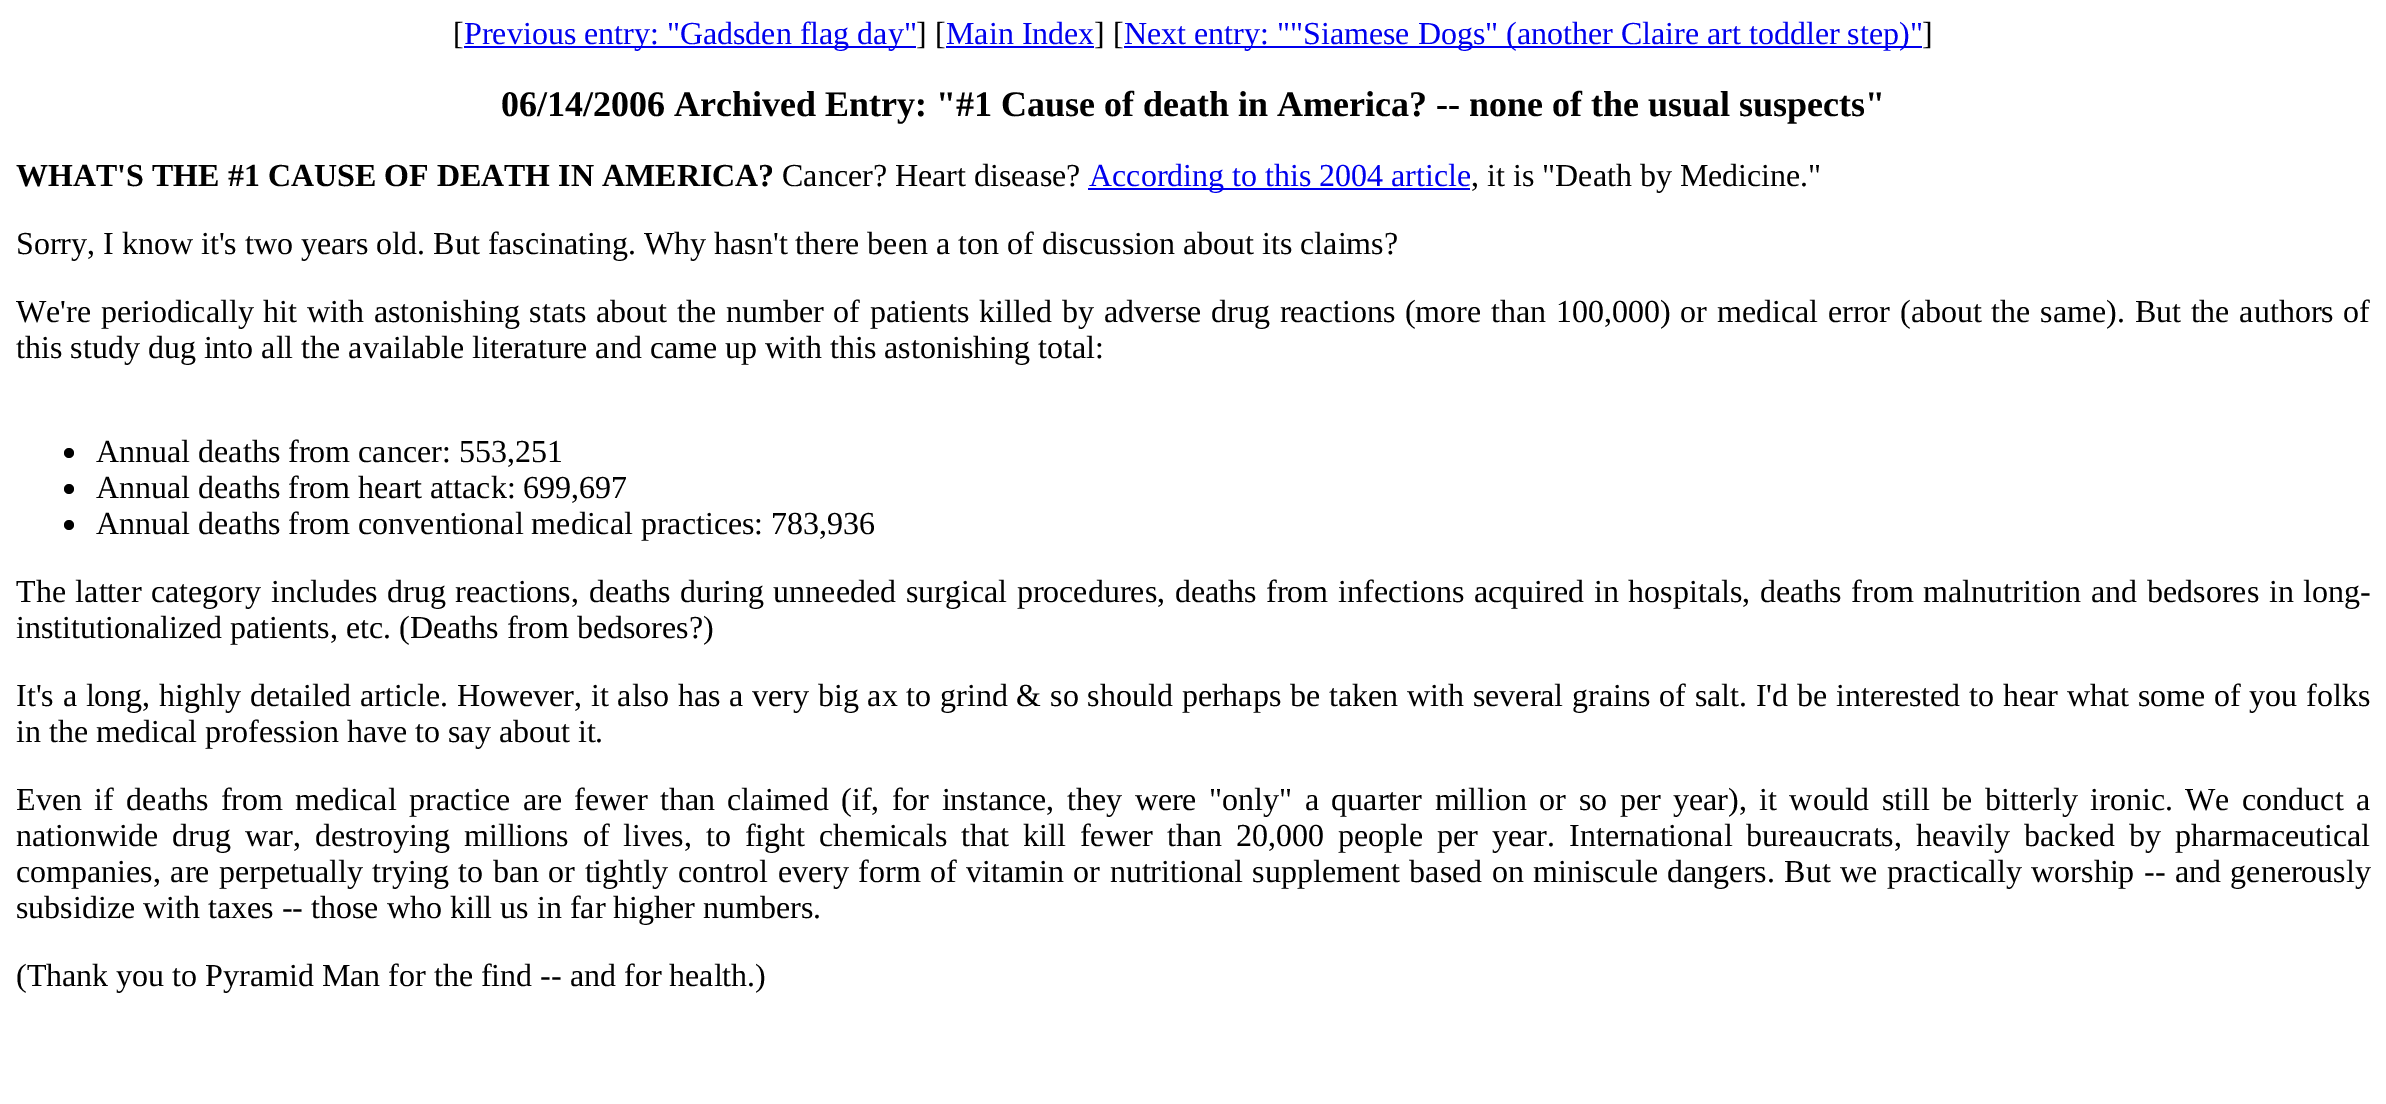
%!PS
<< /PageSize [2386 1104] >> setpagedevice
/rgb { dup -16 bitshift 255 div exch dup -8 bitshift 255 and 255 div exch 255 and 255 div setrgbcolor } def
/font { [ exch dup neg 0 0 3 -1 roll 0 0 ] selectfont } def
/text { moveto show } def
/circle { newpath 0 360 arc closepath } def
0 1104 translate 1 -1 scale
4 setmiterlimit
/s1 { /LiberationSerif-Regular 32 font 16#000000 rgb } def
/s2 { /LiberationSerif-Regular 32 font 16#0000EE rgb } def
/s3 { /LiberationSerif-Bold 36 font 16#000000 rgb } def
/s4 { /LiberationSerif-Bold 32 font 16#000000 rgb } def
16#FFFFFF rgb
0 0 2386 1104 rectfill
s1
([) 453 44 text
16#0000EE rgb
464 46 452 2 rectfill
(Previous entry: "Gadsden flag day") 464 44 text
s1
(] [) 916 44 text
s2
(Main Index) 946 44 text
946 46 148 2 rectfill
s1
(] [) 1094 44 text
16#0000EE rgb
1124 46 798 2 rectfill
(Next entry: ""Siamese Dogs" \(another Claire art toddler step\)") 1124 44 text
s1
(]) 1922 44 text
s3
(06/14/2006 Archived Entry: "#1 Cause of death in America? -- none of the usual suspects") 501 116 text
s4
(WHAT'S THE #1 CAUSE OF DEATH IN AMERICA?) 16 186 text
s1
(Cancer? Heart disease?) 782 186 text
16#0000EE rgb
1088 188 382 2 rectfill
(According to this 2004 article) 1089 186 text
s1
(, it is "Death by Medicine.") 1471 186 text
(Sorry, I know it's two years old. But fascinating. Why hasn't there been a ton of discussion about its claims?) 16 254 text
16 322 moveto 1.8 0 32 (We're periodically hit with astonishing stats about the number of patients killed by adverse drug reactions \(more than 100,000\) or medical error \(about the same\). But the authors of) widthshow
(this study dug into all the available literature and came up with this astonishing total:) 16 358 text
69 453 5 circle fill
(Annual deaths from cancer: 553,251) 96 462 text
69 489 5 circle fill
(Annual deaths from heart attack: 699,697) 96 498 text
69 525 5 circle fill
(Annual deaths from conventional medical practices: 783,936) 96 534 text
16 602 moveto 1.7 0 32 (The latter category includes drug reactions, deaths during unneeded surgical procedures, deaths from infections acquired in hospitals, deaths from malnutrition and bedsores in long-) widthshow
(institutionalized patients, etc. \(Deaths from bedsores?\)) 16 638 text
16 706 moveto 0.8 0 32 (It's a long, highly detailed article. However, it also has a very big ax to grind & so should perhaps be taken with several grains of salt. I'd be interested to hear what some of you folks) widthshow
(in the medical profession have to say about it.) 16 742 text
16 810 moveto 4.5 0 32 (Even if deaths from medical practice are fewer than claimed \(if, for instance, they were "only" a quarter million or so per year\), it would still be bitterly ironic. We conduct a) widthshow
16 846 moveto 6 0 32 (nationwide drug war, destroying millions of lives, to fight chemicals that kill fewer than 20,000 people per year. International bureaucrats, heavily backed by pharmaceutical) widthshow
16 882 moveto 1.5 0 32 (companies, are perpetually trying to ban or tightly control every form of vitamin or nutritional supplement based on miniscule dangers. But we practically worship -- and generously) widthshow
(subsidize with taxes -- those who kill us in far higher numbers.) 16 918 text
(\(Thank you to Pyramid Man for the find -- and for health.\)) 16 986 text
showpage
